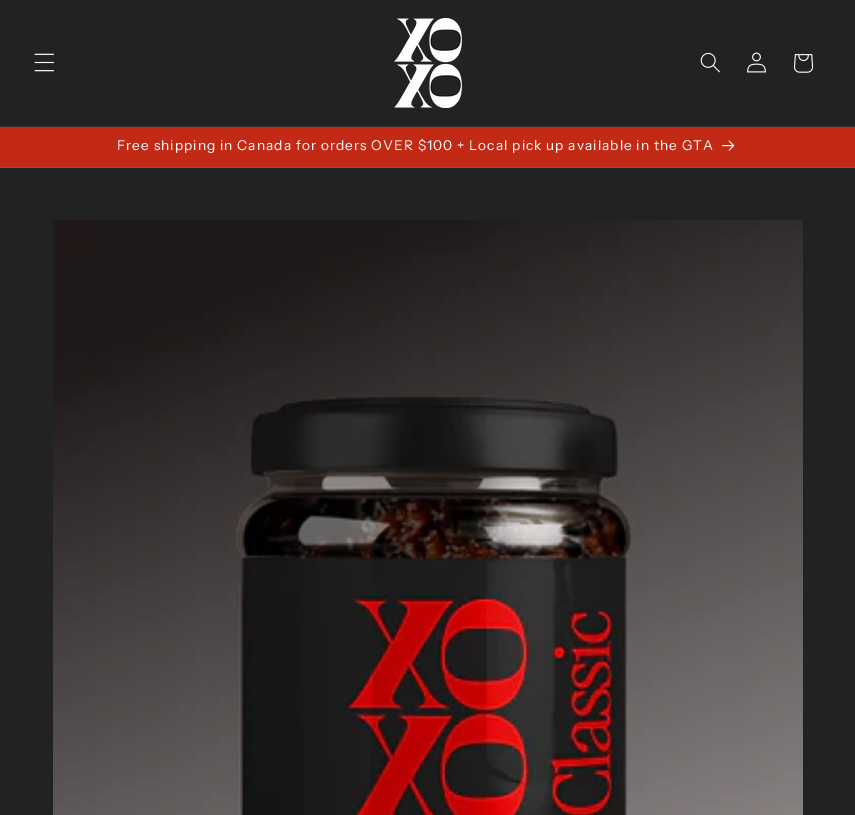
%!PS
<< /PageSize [855 815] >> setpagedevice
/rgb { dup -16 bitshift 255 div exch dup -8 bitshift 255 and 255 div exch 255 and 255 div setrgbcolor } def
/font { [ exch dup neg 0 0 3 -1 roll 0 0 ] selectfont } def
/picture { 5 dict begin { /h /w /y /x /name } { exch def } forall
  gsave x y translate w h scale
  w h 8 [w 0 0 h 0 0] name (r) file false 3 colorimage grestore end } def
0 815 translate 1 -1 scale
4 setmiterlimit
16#232222 rgb
0 0 855 815 rectfill
16#353434 rgb
0 126 855 1 rectfill
(pic1.raw) 34 53 20 19 picture
(pic2.raw) 394 18 69 90 picture
(pic3.raw) 700 52 20 21 picture
(pic4.raw) 747 52 19 21 picture
(pic5.raw) 794 54 20 19 picture
16#C22A15 rgb
0 127 855 40 rectfill
16#C73B28 rgb
0 167 855 1 rectfill
/InstrumentSans-Regular 13.65 font
16#FFFFFF rgb
117 150 moveto 1.05 0 (Free shipping in Canada for orders OVER $100 + Local pick up available in the GTA) ashow
(pic6.raw) 722 140 13 11 picture
(pic7.raw) 53 220 750 595 picture
showpage
